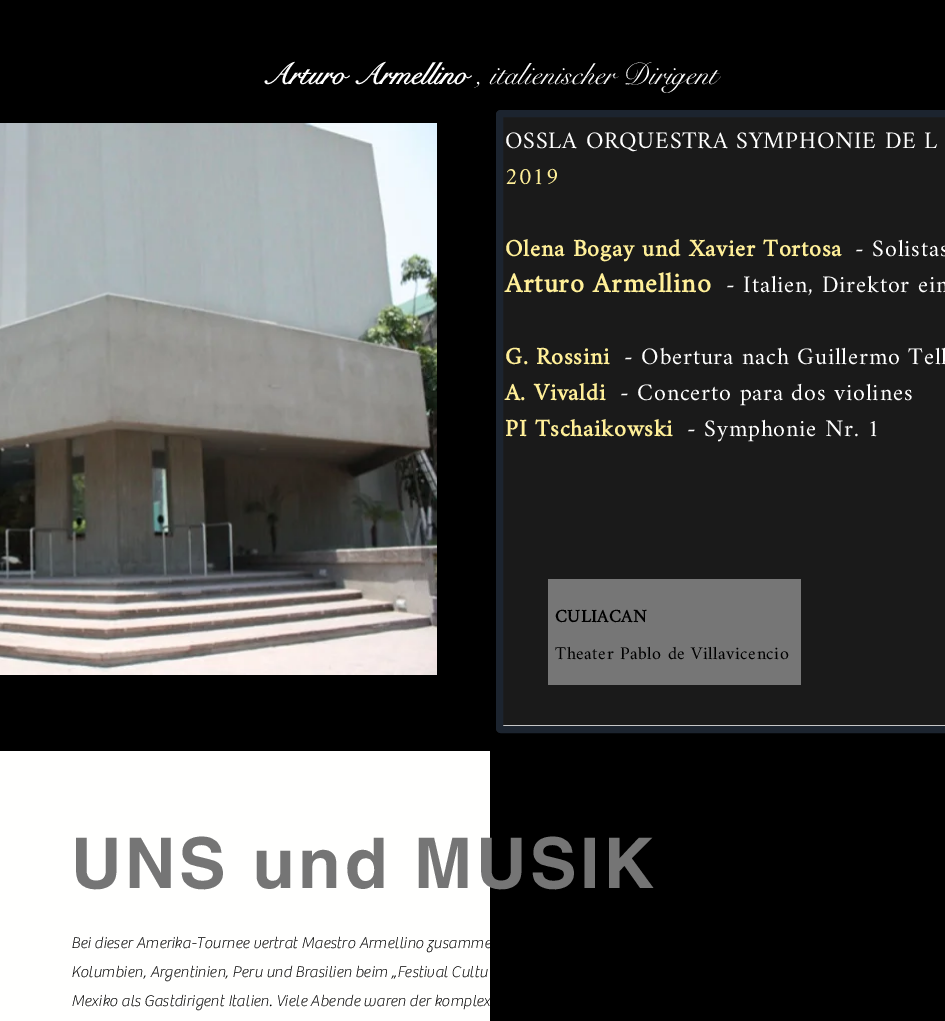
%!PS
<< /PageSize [945 1021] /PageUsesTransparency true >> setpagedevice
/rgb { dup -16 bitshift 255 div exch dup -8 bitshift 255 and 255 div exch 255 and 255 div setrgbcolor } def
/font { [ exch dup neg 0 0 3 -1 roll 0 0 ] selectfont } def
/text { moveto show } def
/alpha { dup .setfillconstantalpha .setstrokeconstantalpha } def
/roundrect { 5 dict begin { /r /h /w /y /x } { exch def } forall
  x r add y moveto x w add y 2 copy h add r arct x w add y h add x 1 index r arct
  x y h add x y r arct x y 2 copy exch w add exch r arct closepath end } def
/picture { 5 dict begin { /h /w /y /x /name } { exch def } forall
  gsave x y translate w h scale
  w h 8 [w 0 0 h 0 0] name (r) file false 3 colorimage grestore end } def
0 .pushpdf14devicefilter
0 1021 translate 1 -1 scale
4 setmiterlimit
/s1 { /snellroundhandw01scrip-Bold 30 font 16#FFFFFF rgb } def
/s2 { /snellroundhandw01scrip-Regular 30 font 16#FFFFFF rgb } def
/s3 { /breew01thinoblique-Thin 16 font 16#000000 rgb } def
16#000000 rgb
0 0 945 1021 rectfill
s1
(Arturo Armellino) 262 84 text
s2
(, italienischer Dirigent) 475 84 text
(pic1.raw) 0 123 437 552 picture
16#1A1A1A rgb
501 110 moveto 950 110 lineto 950 733 lineto 501 733 lineto 498 733 496 731 496 728 curveto 496 115 lineto 496 112 498 110 501 110 curveto closepath fill
16#C6C6C6 rgb
503 725 442 1 rectfill
0.98 alpha
16#1C242F rgb
7 setlinewidth
499.5 113.5 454 616 1.5 roundrect stroke
/Amiri-Regular 24 font
1 alpha
16#FFFFFF rgb
505 148 moveto 0.75 0 (OSSLA ORQUESTRA SYMPHONIE DE L) ashow
16#FFEF98 rgb
505 184 moveto 0.75 0 (2019) ashow
/Amiri-Bold 24 font
505 256 moveto 0.75 0 (Olena Bogay und Xavier Tortosa) ashow
/Amiri-Regular 24 font
16#FFFFFF rgb
855 256 moveto 0.75 0 (- Solistas) ashow
/Amiri-Bold 28 font
16#FFEF98 rgb
505 292 moveto 0.8 0 (Arturo Armellino) ashow
/Amiri-Regular 24 font
16#FFFFFF rgb
726 292 moveto 0.75 0 (- Italien, Direktor ein) ashow
/Amiri-Bold 24 font
16#FFEF98 rgb
505 364 moveto 0.75 0 (G. Rossini) ashow
/Amiri-Regular 24 font
16#FFFFFF rgb
624 364 moveto 0.75 0 (- Obertura nach Guillermo Tell) ashow
/Amiri-Bold 24 font
16#FFEF98 rgb
505 400 moveto 0.75 0 (A. Vivaldi) ashow
/Amiri-Regular 24 font
16#FFFFFF rgb
620 400 moveto 0.75 0 (- Concerto para dos violines) ashow
/Amiri-Bold 24 font
16#FFEF98 rgb
505 436 moveto 0.75 0 (PI Tschaikowski) ashow
/Amiri-Regular 24 font
16#FFFFFF rgb
687 436 moveto 0.75 0 (- Symphonie Nr. 1) ashow
16#767676 rgb
548 579 253 106 rectfill
/Amiri-Bold 18 font
16#000000 rgb
555 622 moveto 0.55 0 (CULIACAN) ashow
/Amiri-Regular 18 font
555 659 moveto 0.55 0 (Theater Pablo de Villavicencio) ashow
16#FFFFFE rgb
0 751 490 270 rectfill
/helvetica-Bold 70 font
16#757575 rgb
71 888 moveto 3.5 0 (UNS und MUSIK) ashow
s3
(Bei dieser Amerika-Tournee vertrat Maestro Armellino zusamme) 71 948 text
(Kolumbien, Argentinien, Peru und Brasilien beim „Festival Cultu) 71 977 text
(Mexiko als Gastdirigent Italien. Viele Abende waren der komplex) 71 1006 text
.poppdf14devicefilter showpage
